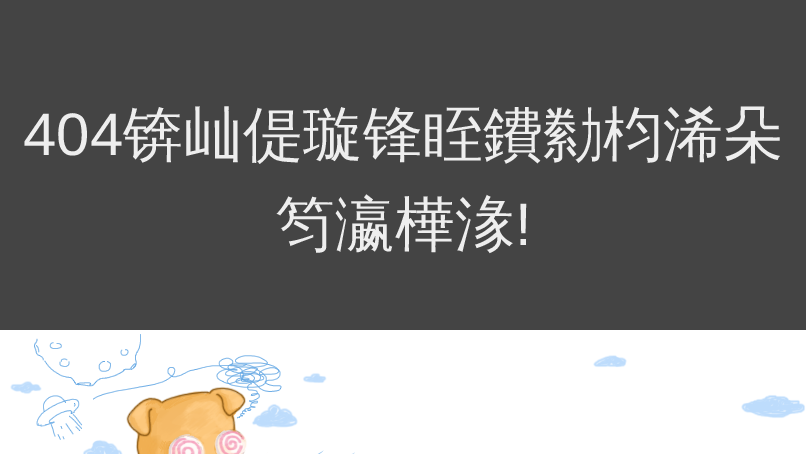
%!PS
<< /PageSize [806 454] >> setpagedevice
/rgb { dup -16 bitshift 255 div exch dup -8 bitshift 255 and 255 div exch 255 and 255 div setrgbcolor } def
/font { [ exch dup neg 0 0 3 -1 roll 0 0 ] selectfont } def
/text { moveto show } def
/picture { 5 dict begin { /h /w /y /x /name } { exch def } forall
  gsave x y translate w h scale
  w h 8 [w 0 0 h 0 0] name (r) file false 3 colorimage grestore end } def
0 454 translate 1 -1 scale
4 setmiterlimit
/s1 { /LiberationSans-Regular 60 font 16#EEEEEE rgb } def
/s2 { /WenQuanYiZenHei-Medium 60 font 16#EEEEEE rgb } def
16#444444 rgb
0 0 806 454 rectfill
s1
(404) 23 155 text
s2
(锛屾偍璇锋眰鐨勬枃浠朵) 123 155 text
(笉瀛樺湪) 275 245 text
s1
(!) 515 245 text
(pic1.raw) 0 330 806 124 picture
showpage
